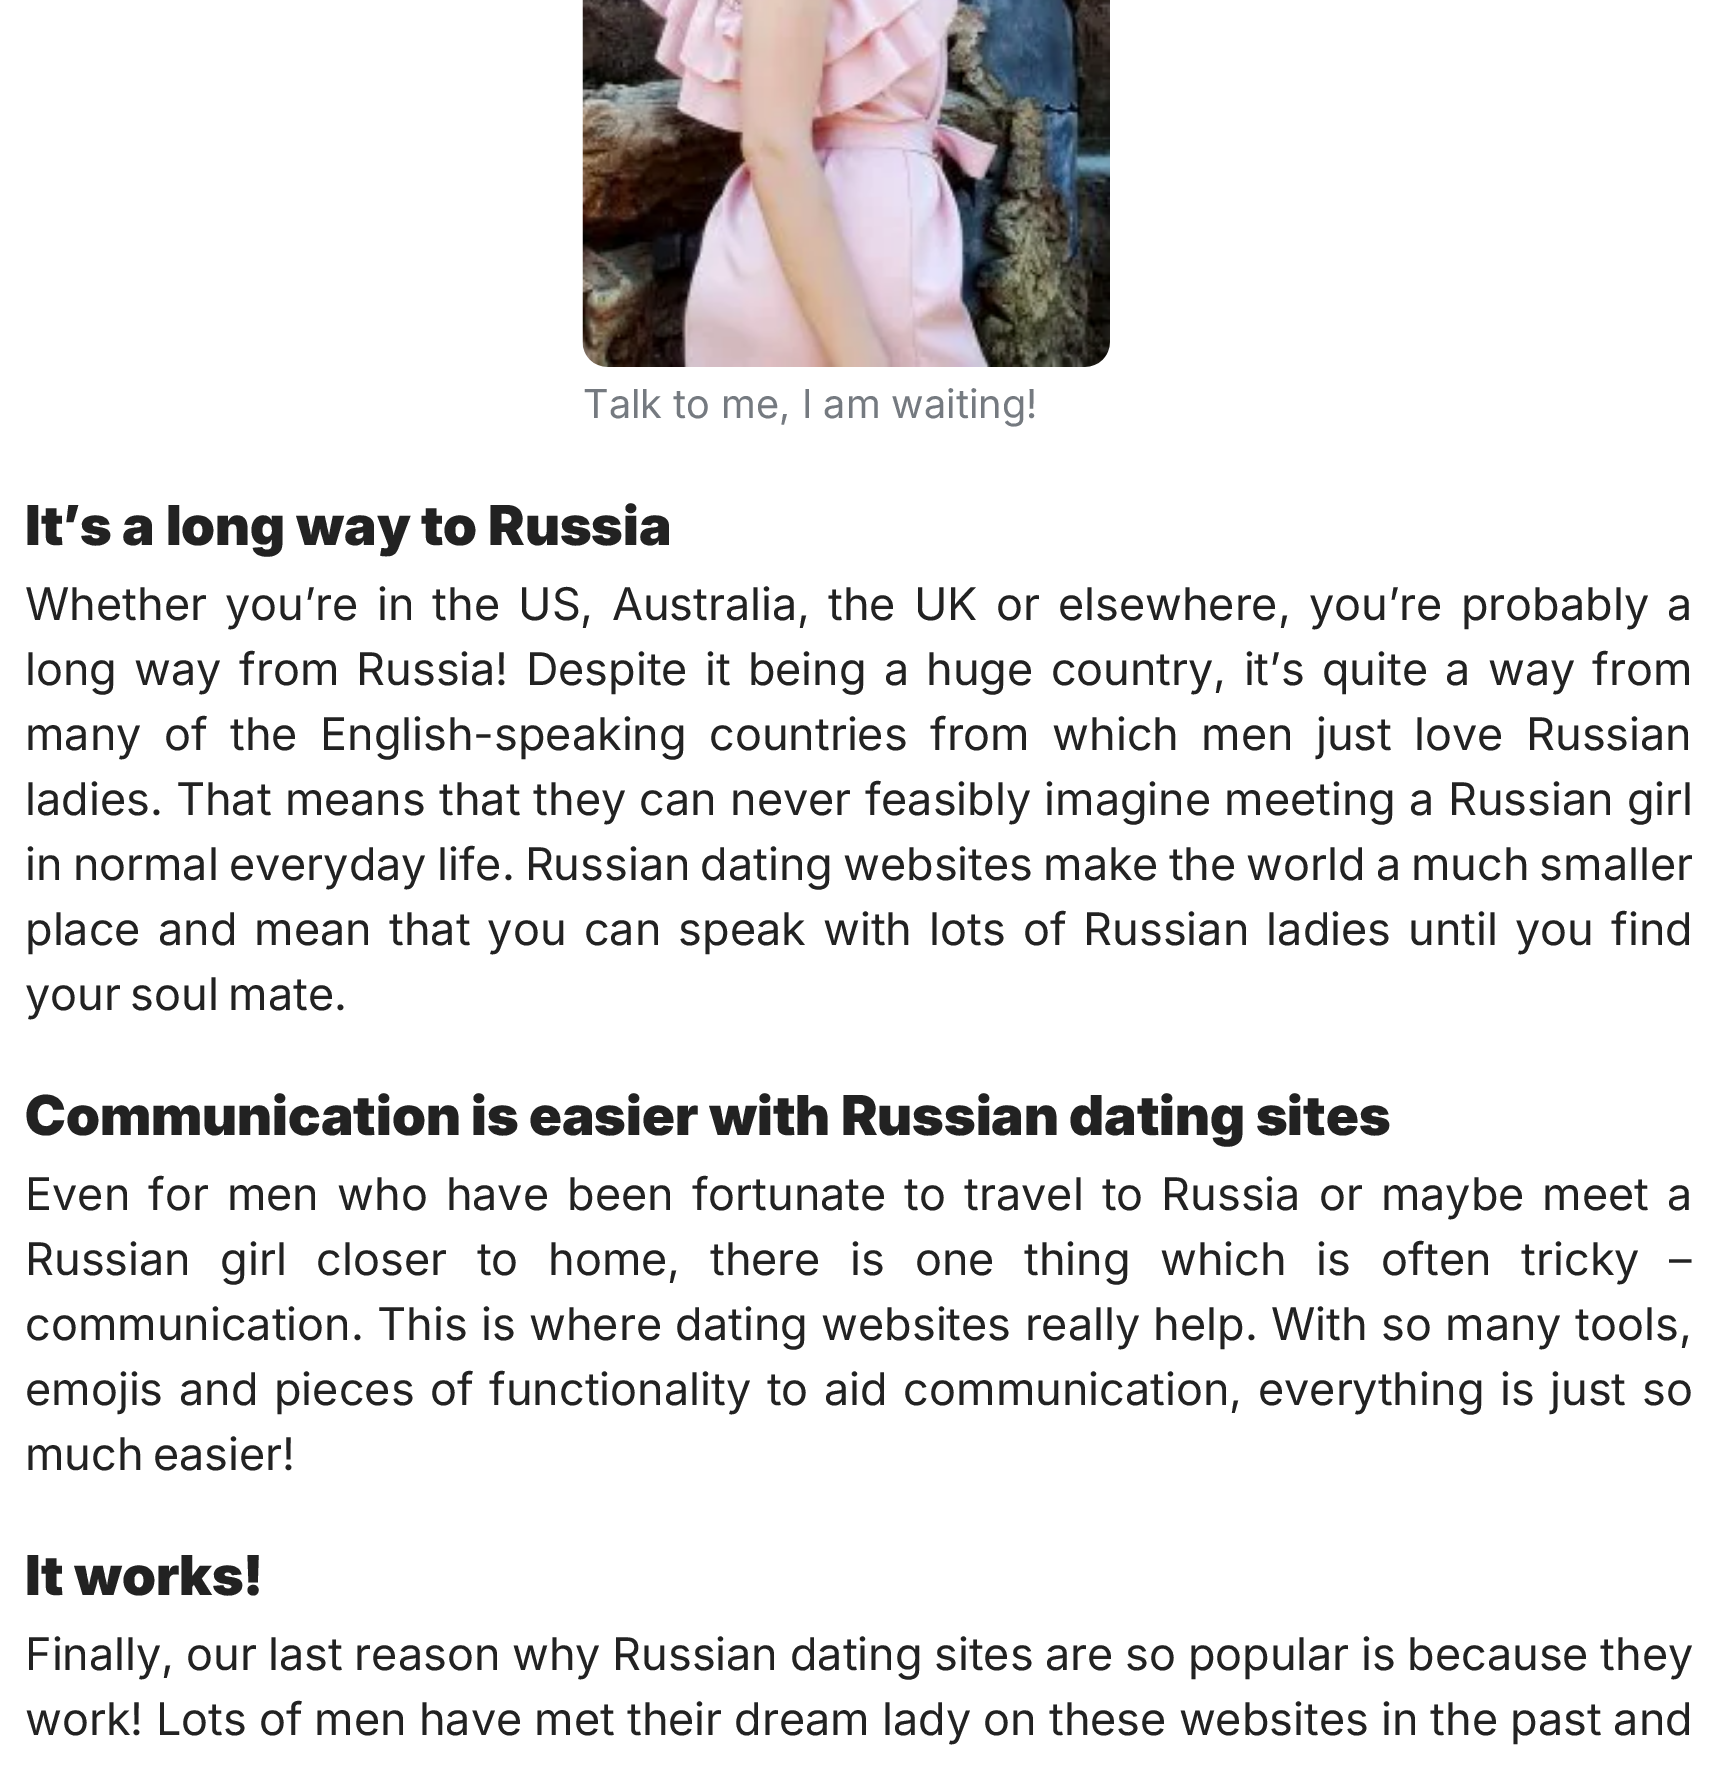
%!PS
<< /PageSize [1717 1778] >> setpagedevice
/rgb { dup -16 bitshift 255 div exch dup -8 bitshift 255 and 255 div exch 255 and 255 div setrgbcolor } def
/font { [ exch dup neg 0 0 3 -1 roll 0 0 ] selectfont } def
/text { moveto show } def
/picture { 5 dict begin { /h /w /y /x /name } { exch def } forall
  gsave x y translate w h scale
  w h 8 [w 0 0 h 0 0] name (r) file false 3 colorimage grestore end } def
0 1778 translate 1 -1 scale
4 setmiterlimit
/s1 { /Inter-Regular 40 font 16#757A80 rgb } def
/s2 { /Inter-Black 55 font 16#222222 rgb } def
16#FFFFFF rgb
0 0 1717 1778 rectfill
(pic1.raw) 582 0 528 367 picture
s1
(Talk to me, I am waiting!) 583 418 text
s2
(It’s a long way to Russia) 25 545 text
/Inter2-Regular 45 font
25 620 moveto 5.5 0 32 (Whether you’re in the US, Australia, the UK or elsewhere, you’re probably a) widthshow
25 685 moveto 4.6 0 32 (long way from Russia! Despite it being a huge country, it’s quite a way from) widthshow
25 750 moveto 9.75 0 32 (many of the English-speaking countries from which men just love Russian) widthshow
25 815 moveto 0.5 0 32 (ladies. That means that they can never feasibly imagine meeting a Russian girl) widthshow
25 880 moveto -2.6 0 32 (in normal everyday life. Russian dating websites make the world a much smaller) widthshow
25 945 moveto 4.5 0 32 (place and mean that you can speak with lots of Russian ladies until you find) widthshow
25 1010 moveto -3 0 32 (your soul mate.) widthshow
s2
(Communication is easier with Russian dating sites) 25 1135 text
/Inter2-Regular 45 font
25 1210 moveto 5.4 0 32 (Even for men who have been fortunate to travel to Russia or maybe meet a) widthshow
25 1275 moveto 17 0 32 (Russian girl closer to home, there is one thing which is often tricky –) widthshow
25 1340 moveto 0.75 0 32 (communication. This is where dating websites really help. With so many tools,) widthshow
25 1405 moveto 3 0 32 (emojis and pieces of functionality to aid communication, everything is just so) widthshow
25 1470 moveto -3 0 32 (much easier!) widthshow
s2
(It works!) 25 1595 text
/Inter2-Regular 45 font
25 1670 moveto -1 0 32 (Finally, our last reason why Russian dating sites are so popular is because they) widthshow
25 1735 moveto -0.5 0 32 (work! Lots of men have met their dream lady on these websites in the past and) widthshow
showpage
